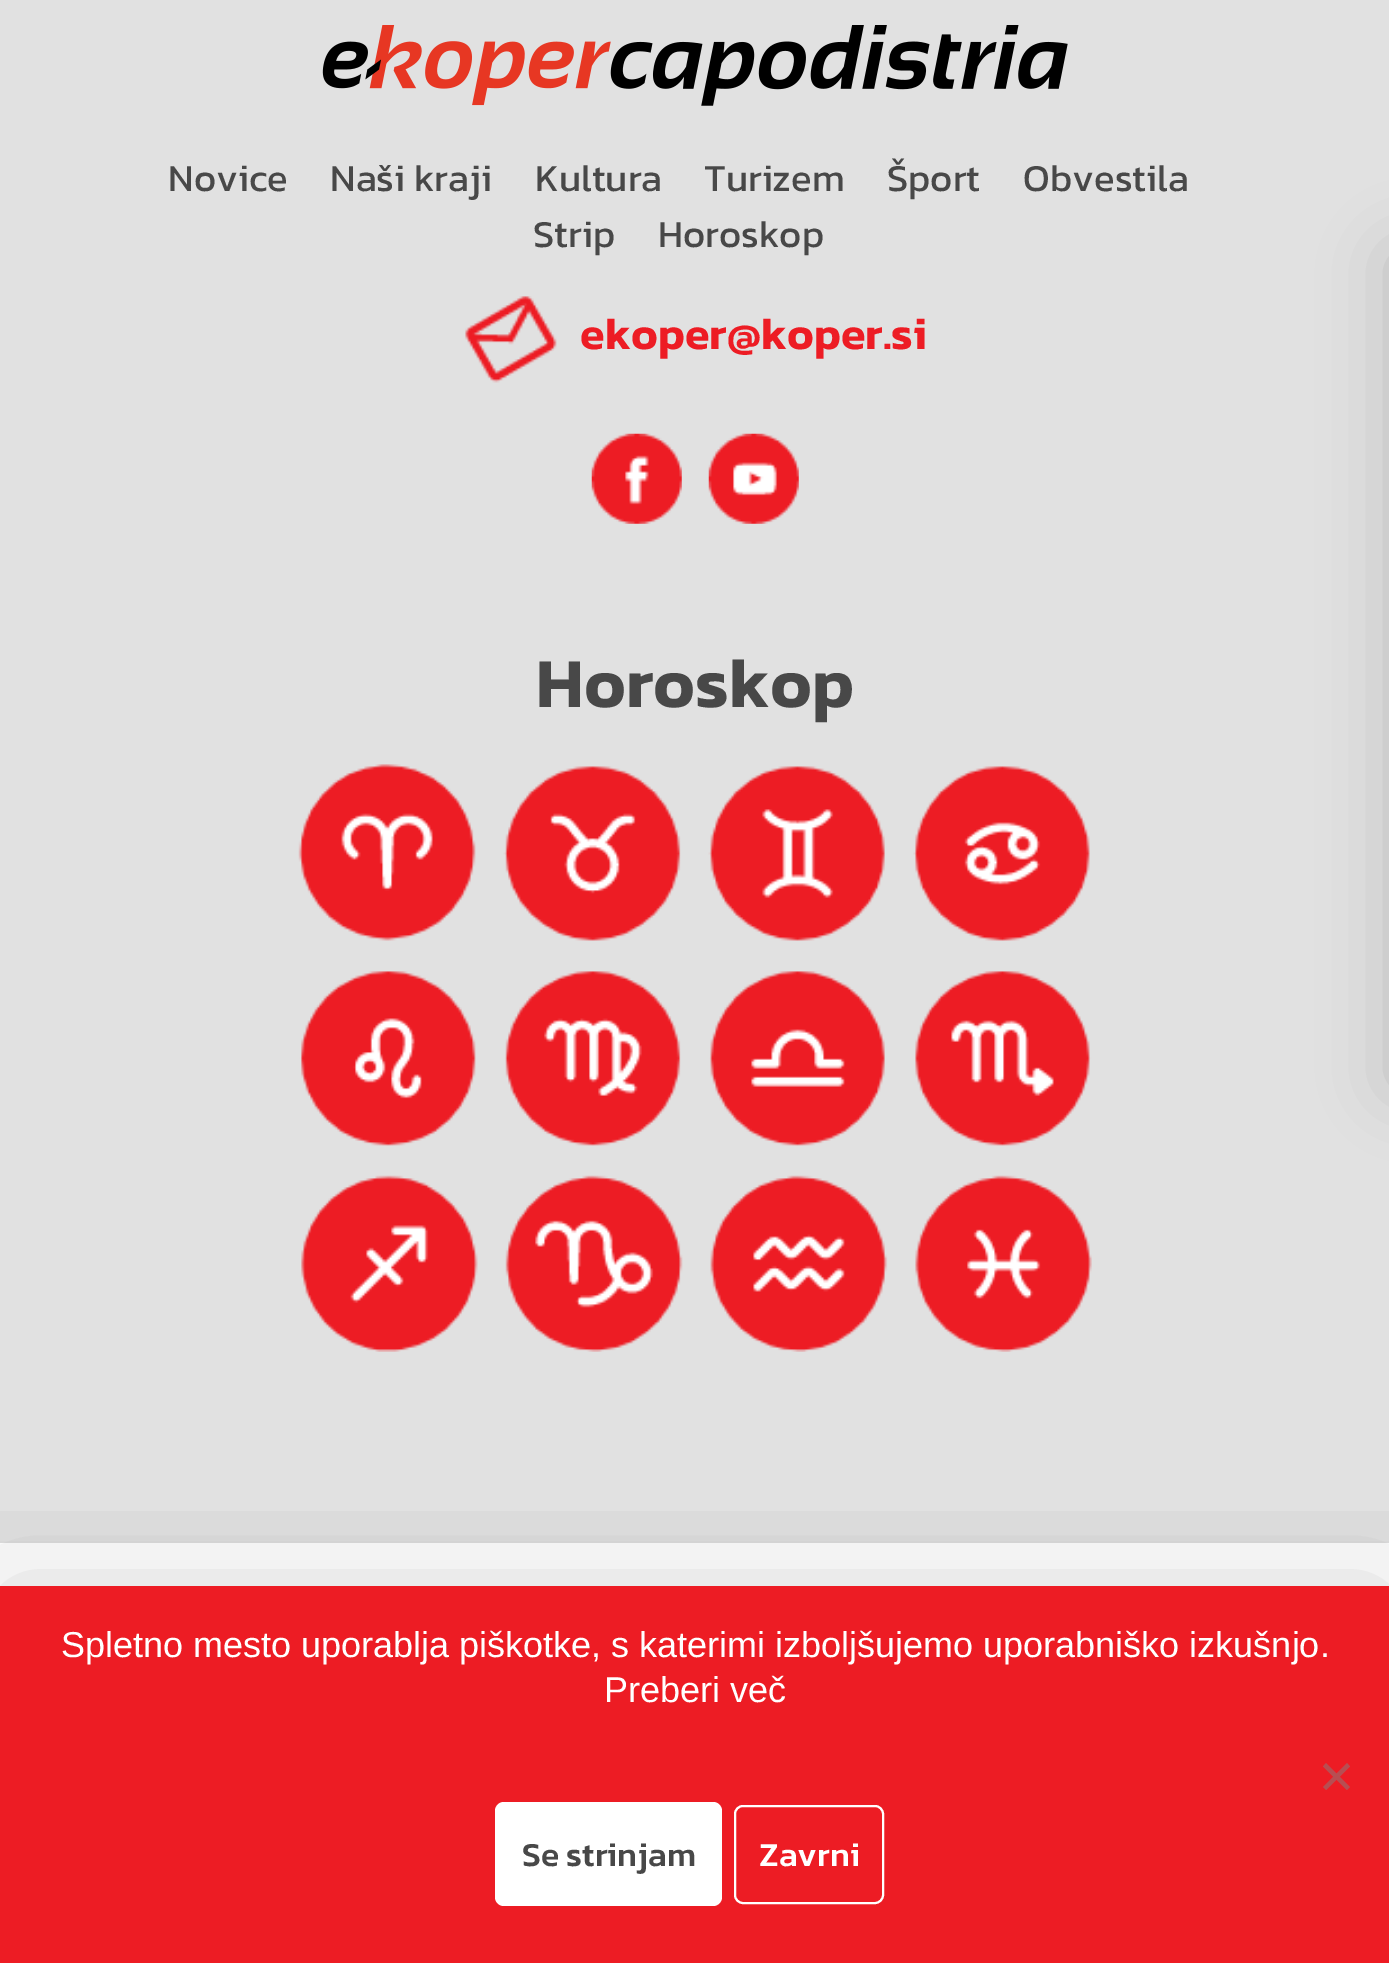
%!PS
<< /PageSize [1389 1963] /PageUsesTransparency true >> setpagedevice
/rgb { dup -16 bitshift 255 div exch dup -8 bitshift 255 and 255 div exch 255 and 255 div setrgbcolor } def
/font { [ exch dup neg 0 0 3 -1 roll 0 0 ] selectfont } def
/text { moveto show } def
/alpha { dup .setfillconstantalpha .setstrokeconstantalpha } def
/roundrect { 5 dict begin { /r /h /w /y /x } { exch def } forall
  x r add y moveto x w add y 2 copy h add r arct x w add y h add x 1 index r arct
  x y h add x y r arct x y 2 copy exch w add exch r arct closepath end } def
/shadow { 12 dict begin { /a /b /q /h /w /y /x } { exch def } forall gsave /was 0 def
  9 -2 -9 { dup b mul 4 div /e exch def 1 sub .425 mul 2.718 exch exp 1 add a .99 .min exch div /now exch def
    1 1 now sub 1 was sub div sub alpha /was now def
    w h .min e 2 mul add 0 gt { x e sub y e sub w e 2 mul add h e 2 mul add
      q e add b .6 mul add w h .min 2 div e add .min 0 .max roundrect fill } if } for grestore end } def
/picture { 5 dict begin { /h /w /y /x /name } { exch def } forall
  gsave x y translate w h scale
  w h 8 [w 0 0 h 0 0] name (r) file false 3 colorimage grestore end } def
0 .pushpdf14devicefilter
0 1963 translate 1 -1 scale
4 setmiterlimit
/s1 { /Kanit-Regular 38.25 font 16#484848 rgb } def
/s2 { /Kanit-SemiBold 45 font 16#ED1C24 rgb } def
/s3 { /Kanit-SemiBold 70.5 font 16#484848 rgb } def
/s4 { /LiberationSans-Regular 36 font 16#FFFFFF rgb } def
/s5 { /Kanit-Medium 33.75 font 16#484848 rgb } def
/s6 { /Kanit-Medium 33.75 font 16#FFFFFF rgb } def
16#FFFFFF rgb
0 0 1389 1963 rectfill
16#E1E1E1 rgb
0 0 1389 1541 rectfill
(pic1.raw) 322 25 746 81 picture
s1
(Novice) 168 191 text
(Naši kraji) 330 191 text
(Kultura) 535 191 text
(Turizem) 704 191 text
(Šport) 887 191 text
(Obvestila) 1023 191 text
(Strip) 533 247 text
(Horoskop) 658 247 text
(pic2.raw) 465 296 92 87 picture
s2
(ekoper@koper.si) 580 349 text
(pic3.raw) 591 433 91 91 picture
(pic4.raw) 708 433 91 91 picture
s3
(Horoskop) 536 707 text
(pic5.raw) 298 764 794 588 picture
16#DEDEDE rgb
0 1541 1389 2 rectfill
16#000000 rgb
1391 254 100 833 0 34 0.16 shadow
16#ED1C24 rgb
0 1586 1389 377 rectfill
gsave
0 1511 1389 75 rectclip
16#000000 rgb
0 1586 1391 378 0 67.5 0.15 shadow
grestore
s4
(Spletno mesto uporablja piškotke, s katerimi izboljšujemo uporabniško izkušnjo.) 61 1657 text
(Preberi več) 604 1702 text
16#B74E52 rgb
1347 1763 moveto 1350 1766.5 lineto 1326 1790 lineto 1323 1787 lineto closepath fill
1323 1766.5 moveto 1326 1763 lineto 1350 1787 lineto 1347 1790 lineto closepath fill
16#FFFFFF rgb
495 1802 227 104 9 roundrect fill
s5
(Se strinjam) 522 1866 text
16#FFFFFF rgb
2 setlinewidth
735 1806 148 97 8 roundrect stroke
(Zavrni) 759 1866 text
.poppdf14devicefilter showpage
